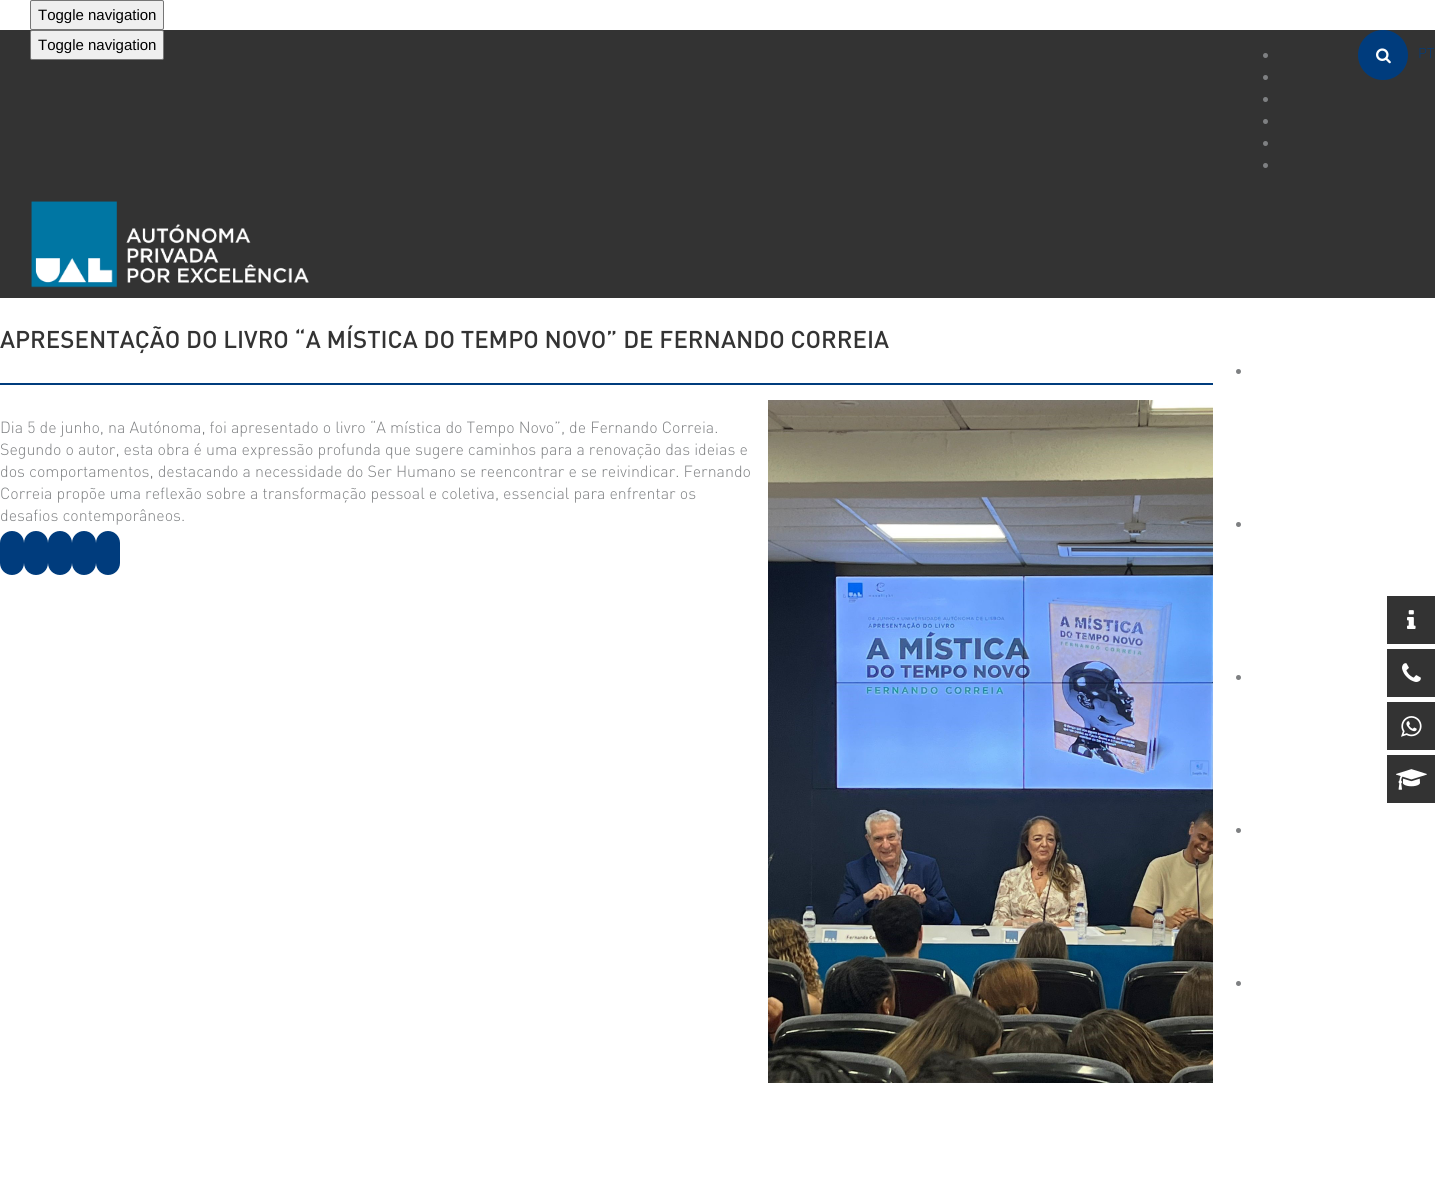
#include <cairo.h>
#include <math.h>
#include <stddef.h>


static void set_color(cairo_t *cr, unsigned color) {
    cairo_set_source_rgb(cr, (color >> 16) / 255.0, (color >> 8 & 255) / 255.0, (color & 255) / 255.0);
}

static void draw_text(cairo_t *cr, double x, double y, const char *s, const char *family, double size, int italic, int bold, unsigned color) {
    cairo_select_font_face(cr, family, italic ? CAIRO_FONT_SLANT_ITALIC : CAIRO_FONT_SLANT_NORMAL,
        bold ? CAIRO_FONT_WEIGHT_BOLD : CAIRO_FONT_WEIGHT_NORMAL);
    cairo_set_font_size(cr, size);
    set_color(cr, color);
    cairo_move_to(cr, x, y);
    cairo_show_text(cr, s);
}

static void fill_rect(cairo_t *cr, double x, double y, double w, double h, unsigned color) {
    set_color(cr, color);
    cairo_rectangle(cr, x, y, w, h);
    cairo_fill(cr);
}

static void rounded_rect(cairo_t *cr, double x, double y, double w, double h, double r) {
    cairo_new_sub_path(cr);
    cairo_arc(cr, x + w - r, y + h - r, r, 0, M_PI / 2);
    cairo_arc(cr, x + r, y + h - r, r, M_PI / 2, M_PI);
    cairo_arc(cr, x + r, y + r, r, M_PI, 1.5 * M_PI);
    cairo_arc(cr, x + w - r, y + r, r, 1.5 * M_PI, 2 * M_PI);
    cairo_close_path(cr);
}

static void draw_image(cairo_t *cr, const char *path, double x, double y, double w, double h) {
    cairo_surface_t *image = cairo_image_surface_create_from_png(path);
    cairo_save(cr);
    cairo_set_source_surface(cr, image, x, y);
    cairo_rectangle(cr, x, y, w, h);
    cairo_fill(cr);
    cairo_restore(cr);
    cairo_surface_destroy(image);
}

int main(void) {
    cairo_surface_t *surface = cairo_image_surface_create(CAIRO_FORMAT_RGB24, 1435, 1192);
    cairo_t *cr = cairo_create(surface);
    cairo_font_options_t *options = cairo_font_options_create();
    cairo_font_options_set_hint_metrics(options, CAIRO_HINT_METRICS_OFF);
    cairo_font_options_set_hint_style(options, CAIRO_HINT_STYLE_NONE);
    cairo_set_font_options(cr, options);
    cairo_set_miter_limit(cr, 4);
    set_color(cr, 0xFFFFFF);
    cairo_paint(cr);
    set_color(cr, 0xEFEFEF);
    rounded_rect(cr, 30.5, 0.5, 133, 29, 1.5);
    cairo_fill_preserve(cr);
    set_color(cr, 0x767676);
    cairo_set_line_width(cr, 1);
    cairo_stroke(cr);
    draw_text(cr, 38, 20, "Toggle navigation", "Liberation Sans", 15, 0, 0, 0x000000);
    fill_rect(cr, 0, 30, 1435, 268, 0x333333);
    set_color(cr, 0x7E8082);
    cairo_new_path(cr);
    cairo_arc(cr, 1265.5, 55.5, 2.5, 0, 2 * M_PI);
    cairo_fill(cr);
    cairo_arc(cr, 1265.5, 77.5, 2.5, 0, 2 * M_PI);
    cairo_fill(cr);
    cairo_arc(cr, 1265.5, 99.5, 2.5, 0, 2 * M_PI);
    cairo_fill(cr);
    cairo_arc(cr, 1265.5, 121.5, 2.5, 0, 2 * M_PI);
    cairo_fill(cr);
    cairo_arc(cr, 1265.5, 143.5, 2.5, 0, 2 * M_PI);
    cairo_fill(cr);
    cairo_arc(cr, 1265.5, 165.5, 2.5, 0, 2 * M_PI);
    cairo_fill(cr);
    set_color(cr, 0x003C7D);
    cairo_arc(cr, 1383, 55, 25, 0, 2 * M_PI);
    cairo_fill(cr);
    draw_image(cr, "assets/img1.png", 1376, 48, 15, 16);
    draw_text(cr, 1418, 58, "PT", "DIN Light", 14, 0, 0, 0x003C7D);
    set_color(cr, 0xEFEFEF);
    rounded_rect(cr, 30.5, 30.5, 133, 29, 1.5);
    cairo_fill_preserve(cr);
    set_color(cr, 0x767676);
    cairo_stroke(cr);
    draw_text(cr, 38, 50, "Toggle navigation", "Liberation Sans", 15, 0, 0, 0x000000);
    draw_image(cr, "assets/img2.png", 31, 201, 278, 87);
    set_color(cr, 0x7E8082);
    cairo_arc(cr, 1238.5, 371.5, 2.5, 0, 2 * M_PI);
    cairo_fill(cr);
    cairo_arc(cr, 1238.5, 524.5, 2.5, 0, 2 * M_PI);
    cairo_fill(cr);
    cairo_arc(cr, 1238.5, 677.5, 2.5, 0, 2 * M_PI);
    cairo_fill(cr);
    cairo_arc(cr, 1238.5, 830.5, 2.5, 0, 2 * M_PI);
    cairo_fill(cr);
    cairo_arc(cr, 1238.5, 983.5, 2.5, 0, 2 * M_PI);
    cairo_fill(cr);
    fill_rect(cr, 1387, 596, 48, 48, 0x333333);
    draw_image(cr, "assets/img3.png", 1407, 610, 9, 19);
    fill_rect(cr, 1387, 649, 48, 48, 0x333333);
    draw_image(cr, "assets/img4.png", 1402, 663, 19, 19);
    fill_rect(cr, 1387, 702, 48, 48, 0x333333);
    draw_image(cr, "assets/img5.png", 1401, 716, 21, 21);
    fill_rect(cr, 1387, 755, 48, 48, 0x333333);
    draw_image(cr, "assets/img6.png", 1396, 769, 31, 21);
    draw_text(cr, 0, 348, "APRESENTAÇÃO DO LIVRO “A MÍSTICA DO TEMPO NOVO” DE FERNANDO CORREIA", "DIN Medium", 24, 0, 0, 0x333333);
    fill_rect(cr, 0, 383, 1213, 2, 0x003C7D);
    draw_text(cr, 0, 433, "Dia 5 de junho, na Autónoma, foi apresentado o livro “A mística do Tempo Novo”, de Fernando Correia.", "DIN Light", 16, 0, 0, 0x7E8082);
    draw_text(cr, 0, 455, "Segundo o autor, esta obra é uma expressão profunda que sugere caminhos para a renovação das ideias e", "DIN Light", 16, 0, 0, 0x7E8082);
    draw_text(cr, 0, 477, "dos comportamentos, destacando a necessidade do Ser Humano se reencontrar e se reivindicar. Fernando", "DIN Light", 16, 0, 0, 0x7E8082);
    draw_text(cr, 0, 499, "Correia propõe uma reflexão sobre a transformação pessoal e coletiva, essencial para enfrentar os", "DIN Light", 16, 0, 0, 0x7E8082);
    draw_text(cr, 0, 521, "desafios contemporâneos.", "DIN Light", 16, 0, 0, 0x7E8082);
    draw_image(cr, "assets/img7.png", 768, 400, 445, 683);
    set_color(cr, 0x003C7D);
    rounded_rect(cr, 0, 531, 24, 44, 12);
    cairo_fill(cr);
    rounded_rect(cr, 24, 531, 24, 44, 12);
    cairo_fill(cr);
    rounded_rect(cr, 48, 531, 24, 44, 12);
    cairo_fill(cr);
    rounded_rect(cr, 72, 531, 24, 44, 12);
    cairo_fill(cr);
    rounded_rect(cr, 96, 531, 24, 44, 12);
    cairo_fill(cr);
    cairo_surface_write_to_png(surface, "output.png");
    cairo_font_options_destroy(options);
    cairo_destroy(cr);
    cairo_surface_destroy(surface);
    return 0;
}
